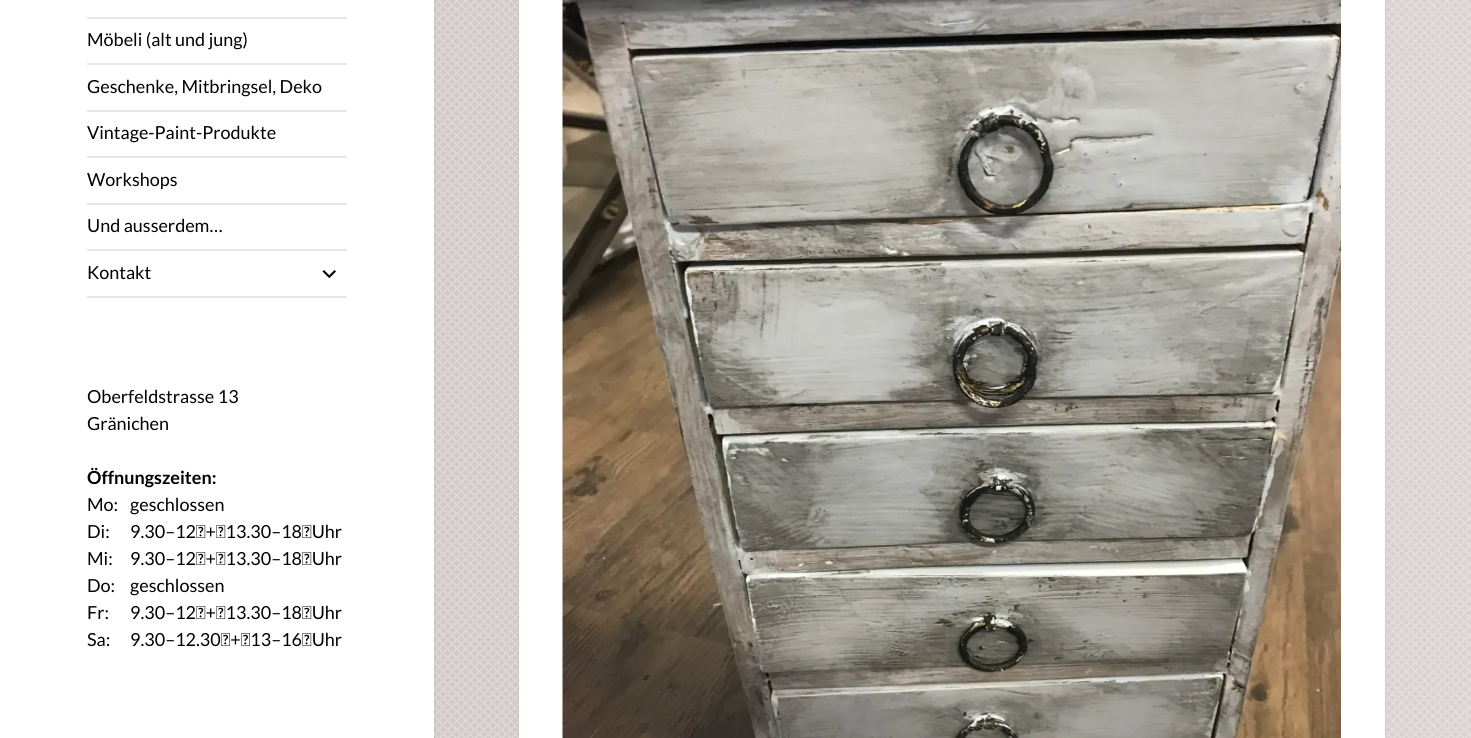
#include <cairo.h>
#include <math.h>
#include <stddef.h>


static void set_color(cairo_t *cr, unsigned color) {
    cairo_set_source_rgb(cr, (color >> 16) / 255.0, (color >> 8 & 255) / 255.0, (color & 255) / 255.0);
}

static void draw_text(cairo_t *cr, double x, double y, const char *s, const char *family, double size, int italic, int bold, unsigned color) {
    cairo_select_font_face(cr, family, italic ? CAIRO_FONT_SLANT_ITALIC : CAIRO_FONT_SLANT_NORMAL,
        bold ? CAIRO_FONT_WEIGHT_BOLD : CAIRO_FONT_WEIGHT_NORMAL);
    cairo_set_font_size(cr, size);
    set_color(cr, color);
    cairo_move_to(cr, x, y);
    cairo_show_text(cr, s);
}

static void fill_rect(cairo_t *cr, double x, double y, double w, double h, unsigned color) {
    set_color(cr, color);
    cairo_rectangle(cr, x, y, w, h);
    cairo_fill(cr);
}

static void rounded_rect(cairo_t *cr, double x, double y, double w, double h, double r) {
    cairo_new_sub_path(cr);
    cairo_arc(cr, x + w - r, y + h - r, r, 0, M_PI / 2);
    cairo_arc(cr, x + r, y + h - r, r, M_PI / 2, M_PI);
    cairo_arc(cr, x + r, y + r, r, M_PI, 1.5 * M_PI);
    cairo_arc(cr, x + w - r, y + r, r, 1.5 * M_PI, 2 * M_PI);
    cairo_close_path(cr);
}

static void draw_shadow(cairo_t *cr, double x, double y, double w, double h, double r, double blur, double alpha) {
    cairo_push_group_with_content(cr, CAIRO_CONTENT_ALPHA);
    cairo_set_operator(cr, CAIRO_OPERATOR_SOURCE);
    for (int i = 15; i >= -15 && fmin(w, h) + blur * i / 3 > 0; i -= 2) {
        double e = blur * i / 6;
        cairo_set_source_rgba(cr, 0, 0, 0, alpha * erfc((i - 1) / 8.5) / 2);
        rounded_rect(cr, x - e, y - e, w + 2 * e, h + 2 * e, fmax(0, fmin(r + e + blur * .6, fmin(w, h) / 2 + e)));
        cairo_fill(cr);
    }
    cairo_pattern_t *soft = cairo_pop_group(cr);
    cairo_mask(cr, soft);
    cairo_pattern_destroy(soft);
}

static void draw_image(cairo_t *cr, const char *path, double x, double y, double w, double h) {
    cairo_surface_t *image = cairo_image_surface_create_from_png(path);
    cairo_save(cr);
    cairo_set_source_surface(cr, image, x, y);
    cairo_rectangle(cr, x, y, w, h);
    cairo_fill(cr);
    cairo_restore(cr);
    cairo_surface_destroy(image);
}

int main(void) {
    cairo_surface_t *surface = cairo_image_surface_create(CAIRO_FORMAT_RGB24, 1471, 738);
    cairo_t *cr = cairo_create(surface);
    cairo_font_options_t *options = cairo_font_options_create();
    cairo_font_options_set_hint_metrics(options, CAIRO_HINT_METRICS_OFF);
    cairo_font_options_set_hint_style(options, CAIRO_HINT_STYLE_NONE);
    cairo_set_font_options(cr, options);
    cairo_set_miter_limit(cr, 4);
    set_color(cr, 0xFFFFFF);
    cairo_paint(cr);
    draw_image(cr, "assets/img1.png", 434, 0, 1037, 738);
    set_color(cr, 0x000000);
    draw_shadow(cr, 0, 0, 434, 738, 0, 1, 0.15);
    fill_rect(cr, 0, 0, 434, 738, 0xFFFFFF);
    fill_rect(cr, 87, 296, 260, 2, 0xE6E6E6);
    fill_rect(cr, 87, 17, 260, 2, 0xE6E6E6);
    draw_text(cr, 87, 46, "Möbeli (alt und jung)", "Lato", 18, 0, 0, 0x000000);
    fill_rect(cr, 87, 63, 260, 2, 0xE6E6E6);
    draw_text(cr, 87, 93, "Geschenke, Mitbringsel, Deko", "Lato", 18, 0, 0, 0x000000);
    fill_rect(cr, 87, 110, 260, 2, 0xE6E6E6);
    draw_text(cr, 87, 139, "Vintage-Paint-Produkte", "Lato", 18, 0, 0, 0x000000);
    fill_rect(cr, 87, 156, 260, 2, 0xE6E6E6);
    draw_text(cr, 87, 186, "Workshops", "Lato", 18, 0, 0, 0x000000);
    fill_rect(cr, 87, 203, 260, 2, 0xE6E6E6);
    draw_text(cr, 87, 232, "Und ausserdem…", "Lato", 18, 0, 0, 0x000000);
    fill_rect(cr, 87, 249, 260, 2, 0xE6E6E6);
    draw_text(cr, 87, 279, "Kontakt", "Lato", 18, 0, 0, 0x000000);
    draw_image(cr, "assets/img2.png", 322, 270, 14, 9);
    draw_text(cr, 87, 403, "Oberfeldstrasse 13", "Lato", 18, 0, 0, 0x000000);
    draw_text(cr, 87, 430, "Gränichen", "Lato", 18, 0, 0, 0x000000);
    draw_text(cr, 87, 484, "Öffnungszeiten:", "Lato", 18, 0, 1, 0x000000);
    draw_text(cr, 87, 511, "Mo:", "Lato", 18, 0, 0, 0x000000);
    draw_text(cr, 87, 538, "Di:", "Lato", 18, 0, 0, 0x000000);
    draw_text(cr, 87, 565, "Mi:", "Lato", 18, 0, 0, 0x000000);
    draw_text(cr, 87, 592, "Do:", "Lato", 18, 0, 0, 0x000000);
    draw_text(cr, 87, 619, "Fr:", "Lato", 18, 0, 0, 0x000000);
    draw_text(cr, 87, 646, "Sa:", "Lato", 18, 0, 0, 0x000000);
    draw_text(cr, 130, 511, "geschlossen", "Lato", 18, 0, 0, 0x000000);
    draw_text(cr, 130, 538, "9.30–12 + 13.30–18 Uhr", "Lato", 18, 0, 0, 0x000000);
    draw_text(cr, 130, 565, "9.30–12 + 13.30–18 Uhr", "Lato", 18, 0, 0, 0x000000);
    draw_text(cr, 130, 592, "geschlossen", "Lato", 18, 0, 0, 0x000000);
    draw_text(cr, 130, 619, "9.30–12 + 13.30–18 Uhr", "Lato", 18, 0, 0, 0x000000);
    draw_text(cr, 130, 646, "9.30–12.30 + 13–16 Uhr", "Lato", 18, 0, 0, 0x000000);
    set_color(cr, 0x000000);
    draw_shadow(cr, 519, -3, 866, 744, 0, 1, 0.15);
    fill_rect(cr, 519, 0, 866, 738, 0xFFFFFF);
    draw_image(cr, "assets/img3.png", 562, 0, 779, 738);
    cairo_surface_write_to_png(surface, "output.png");
    cairo_font_options_destroy(options);
    cairo_destroy(cr);
    cairo_surface_destroy(surface);
    return 0;
}
